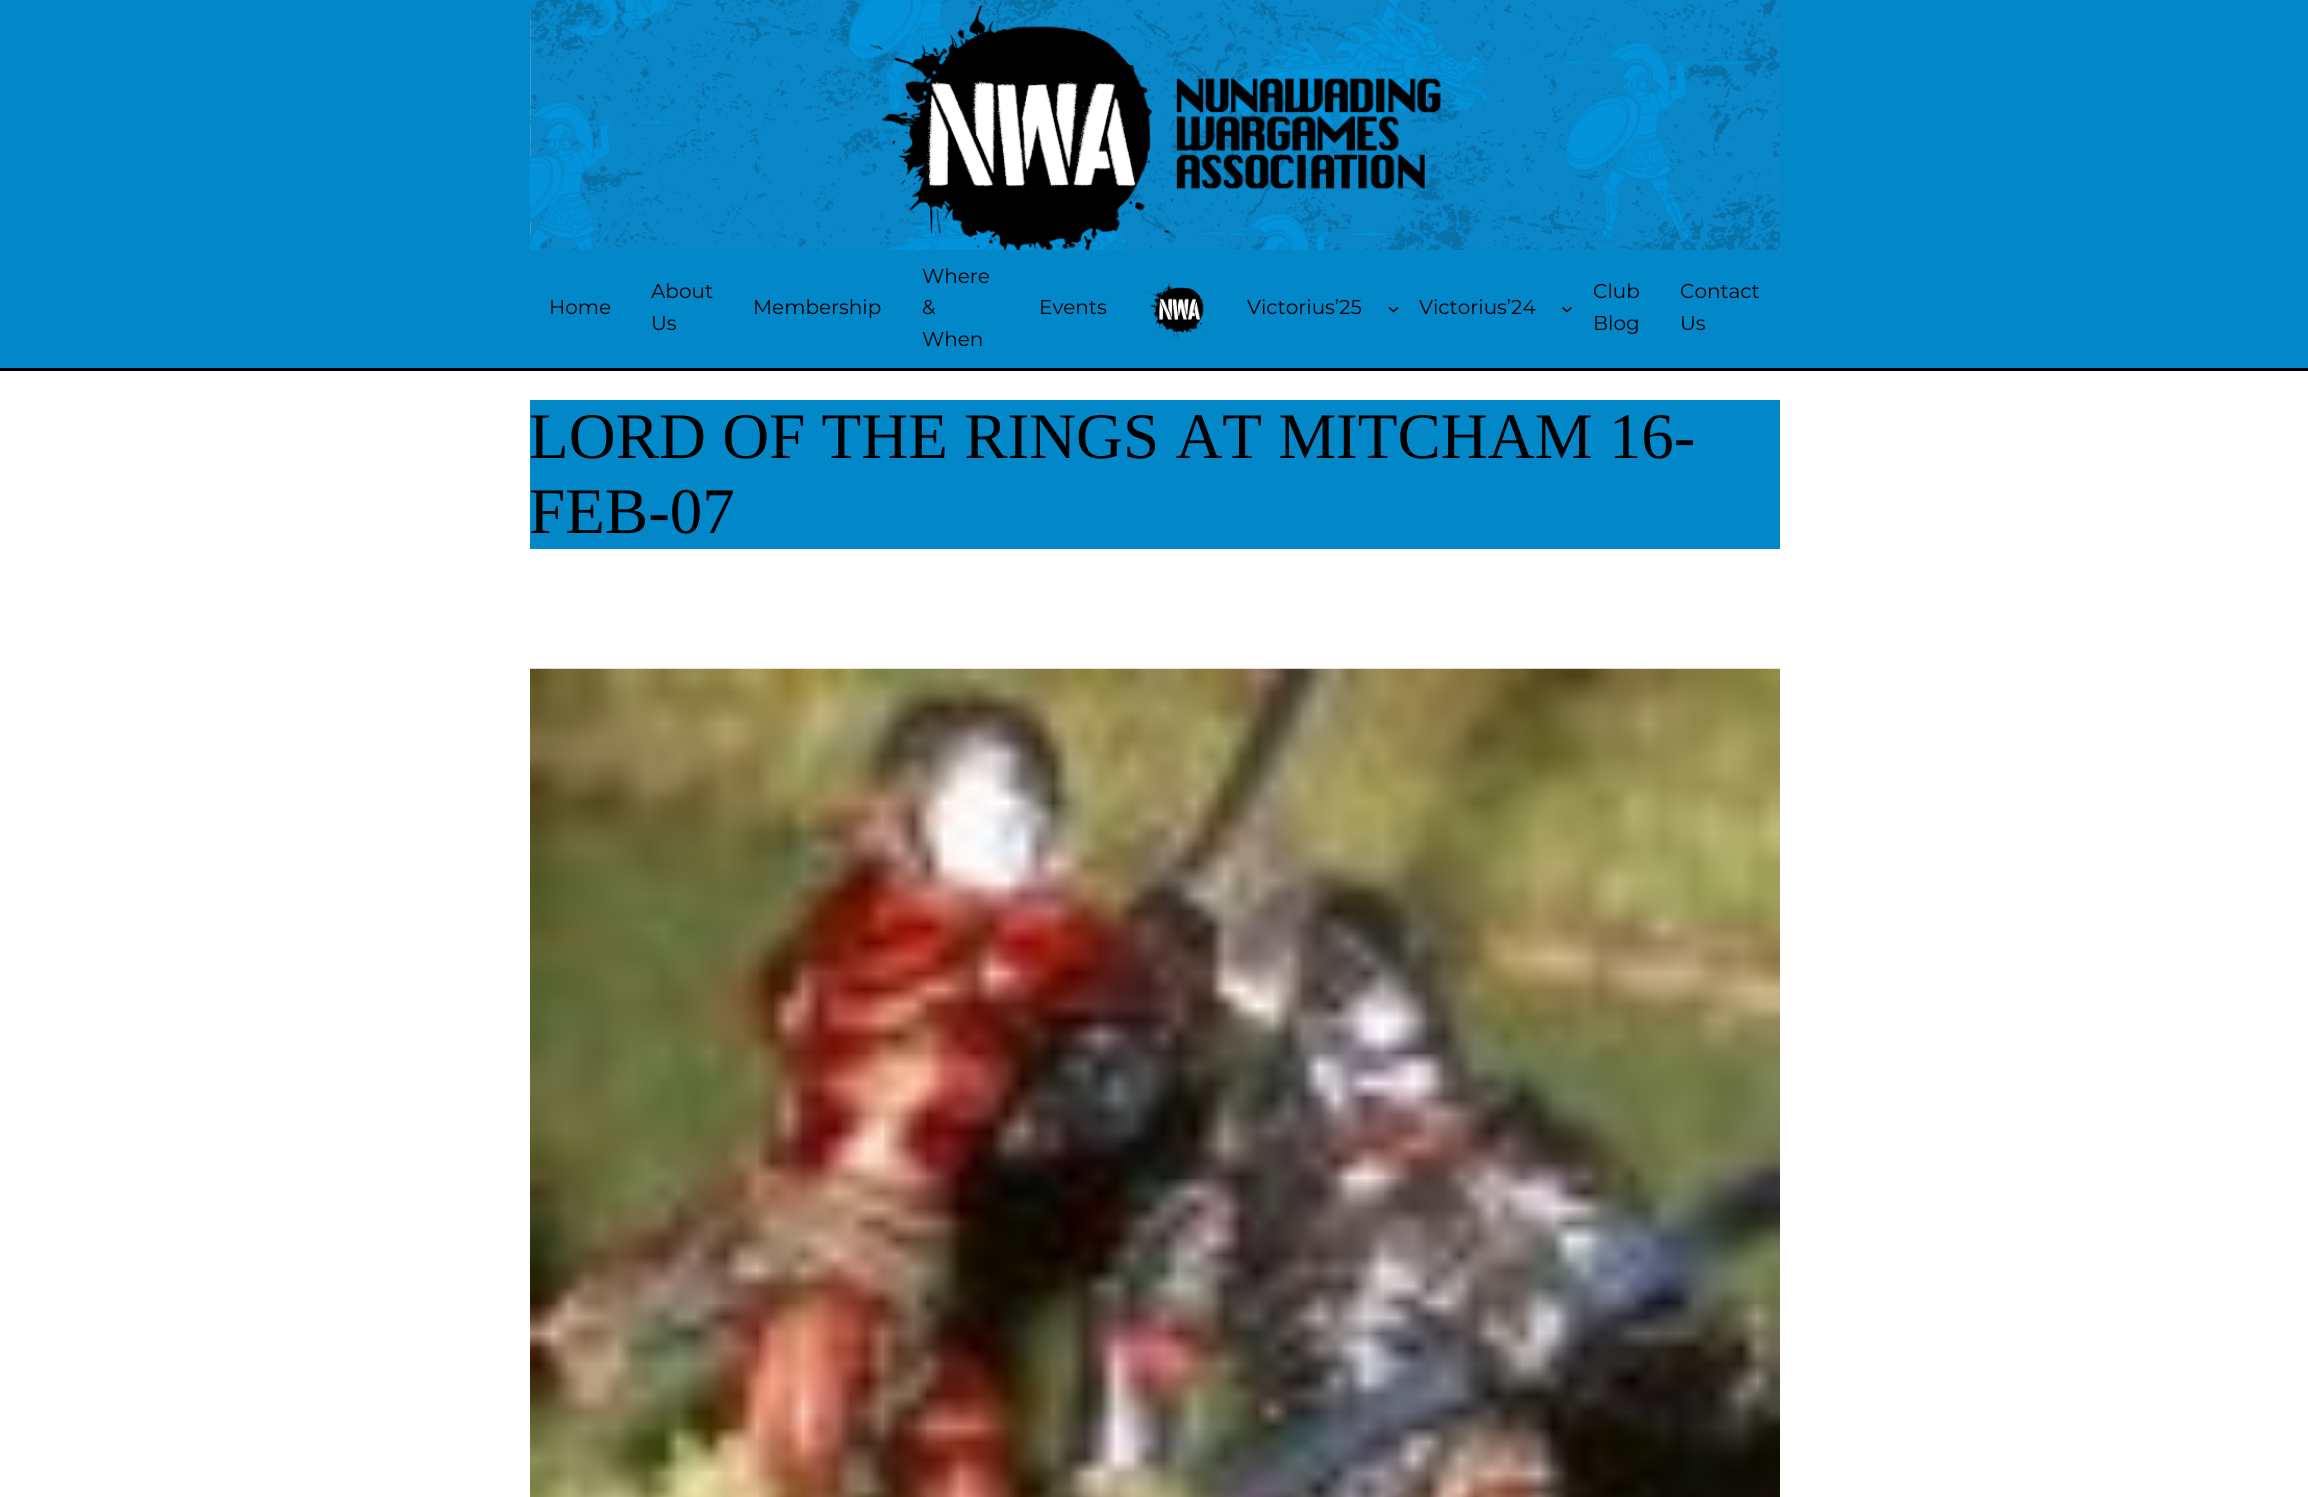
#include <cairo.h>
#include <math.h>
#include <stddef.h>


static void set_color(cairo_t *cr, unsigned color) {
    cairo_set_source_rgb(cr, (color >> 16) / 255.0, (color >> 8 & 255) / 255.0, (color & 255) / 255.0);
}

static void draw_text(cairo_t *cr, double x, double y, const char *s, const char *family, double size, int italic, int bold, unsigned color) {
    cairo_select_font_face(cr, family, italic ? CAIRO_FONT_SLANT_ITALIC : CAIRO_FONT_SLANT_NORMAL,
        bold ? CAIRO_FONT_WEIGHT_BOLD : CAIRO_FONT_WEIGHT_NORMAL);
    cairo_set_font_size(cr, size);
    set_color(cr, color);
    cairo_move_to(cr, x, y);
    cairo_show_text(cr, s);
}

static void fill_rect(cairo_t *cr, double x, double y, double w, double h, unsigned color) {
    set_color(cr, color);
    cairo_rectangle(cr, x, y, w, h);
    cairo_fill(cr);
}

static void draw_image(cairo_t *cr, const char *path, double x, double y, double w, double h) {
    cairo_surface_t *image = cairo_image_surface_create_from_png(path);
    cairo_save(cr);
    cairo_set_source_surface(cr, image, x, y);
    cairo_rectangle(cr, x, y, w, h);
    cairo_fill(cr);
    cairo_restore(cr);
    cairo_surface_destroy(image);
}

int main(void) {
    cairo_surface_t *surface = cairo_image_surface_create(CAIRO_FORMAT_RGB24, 2308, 1497);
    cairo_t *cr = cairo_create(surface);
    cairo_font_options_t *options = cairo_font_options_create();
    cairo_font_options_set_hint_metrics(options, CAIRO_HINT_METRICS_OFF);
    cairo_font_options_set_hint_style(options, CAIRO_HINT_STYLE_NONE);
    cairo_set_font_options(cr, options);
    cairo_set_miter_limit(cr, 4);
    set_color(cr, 0xFFFFFF);
    cairo_paint(cr);
    fill_rect(cr, 0, 0, 2308, 368, 0x0287C9);
    fill_rect(cr, 0, 368, 2308, 3, 0x000000);
    draw_image(cr, "assets/img1.png", 530, 0, 1250, 250);
    draw_text(cr, 549, 314, "Home", "Montserrat", 20, 0, 0, 0x000000);
    draw_text(cr, 651, 298, "About", "Montserrat", 20, 0, 0, 0x000000);
    draw_text(cr, 651, 330, "Us", "Montserrat", 20, 0, 0, 0x000000);
    draw_text(cr, 753, 314, "Membership", "Montserrat", 20, 0, 0, 0x000000);
    draw_text(cr, 922, 283, "Where", "Montserrat", 20, 0, 0, 0x000000);
    draw_text(cr, 922, 314, "&", "Montserrat", 20, 0, 0, 0x000000);
    draw_text(cr, 922, 346, "When", "Montserrat", 20, 0, 0, 0x000000);
    draw_text(cr, 1039, 314, "Events", "Montserrat", 20, 0, 0, 0x000000);
    draw_image(cr, "assets/img2.png", 1147, 276, 61, 63);
    draw_text(cr, 1247, 314, "Victorius’25", "Montserrat", 20, 0, 0, 0x000000);
    cairo_new_path(cr);
    cairo_move_to(cr, 1389, 307.5);
    cairo_line_to(cr, 1393.5, 311.5);
    cairo_line_to(cr, 1398, 307.5);
    cairo_set_line_width(cr, 1.5);
    cairo_stroke(cr);
    draw_text(cr, 1419, 314, "Victorius’24", "Montserrat", 20, 0, 0, 0x000000);
    cairo_new_path(cr);
    cairo_move_to(cr, 1562.5, 307.5);
    cairo_line_to(cr, 1567, 311.5);
    cairo_line_to(cr, 1571.5, 307.5);
    cairo_stroke(cr);
    draw_text(cr, 1593, 298, "Club", "Montserrat", 20, 0, 0, 0x000000);
    draw_text(cr, 1593, 330, "Blog", "Montserrat", 20, 0, 0, 0x000000);
    draw_text(cr, 1680, 298, "Contact", "Montserrat", 20, 0, 0, 0x000000);
    draw_text(cr, 1680, 330, "Us", "Montserrat", 20, 0, 0, 0x000000);
    fill_rect(cr, 530, 400, 1250, 149, 0x0287C9);
    draw_text(cr, 529, 458, "LORD OF THE RINGS AT MITCHAM 16-", "Liberation Serif", 65, 0, 0, 0x000000);
    draw_text(cr, 529, 533, "FEB-07", "Liberation Serif", 65, 0, 0, 0x000000);
    draw_image(cr, "assets/img3.png", 530, 668, 1250, 829);
    cairo_surface_write_to_png(surface, "output.png");
    cairo_font_options_destroy(options);
    cairo_destroy(cr);
    cairo_surface_destroy(surface);
    return 0;
}
